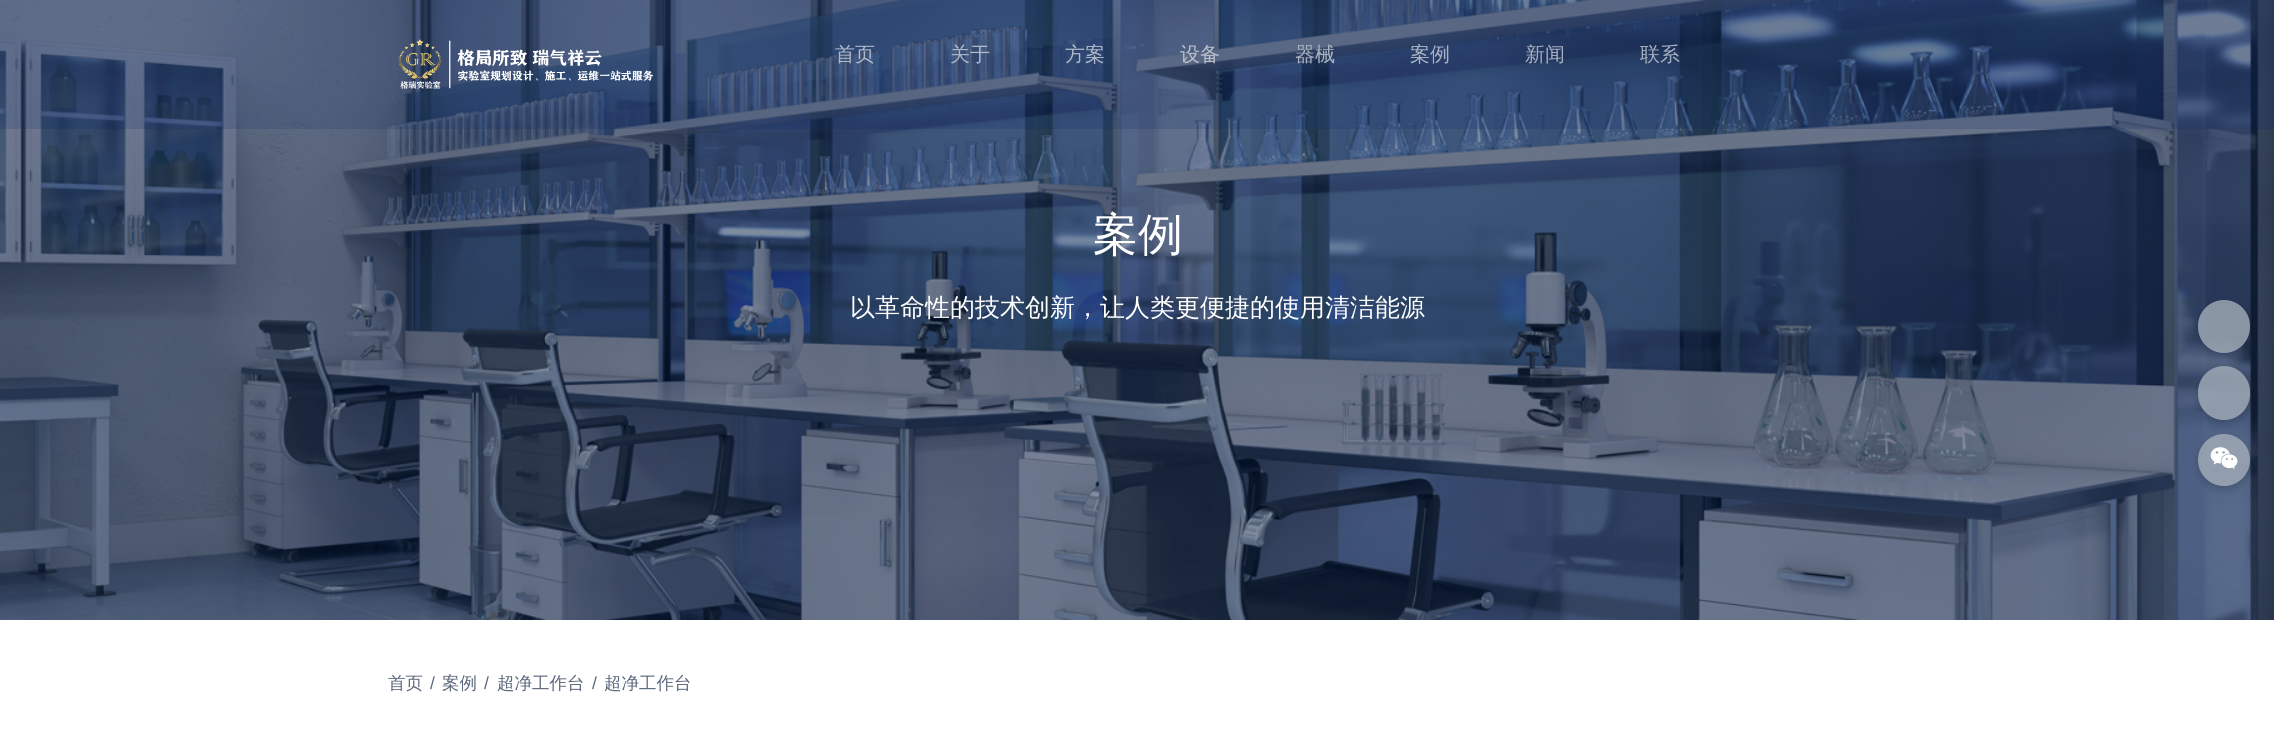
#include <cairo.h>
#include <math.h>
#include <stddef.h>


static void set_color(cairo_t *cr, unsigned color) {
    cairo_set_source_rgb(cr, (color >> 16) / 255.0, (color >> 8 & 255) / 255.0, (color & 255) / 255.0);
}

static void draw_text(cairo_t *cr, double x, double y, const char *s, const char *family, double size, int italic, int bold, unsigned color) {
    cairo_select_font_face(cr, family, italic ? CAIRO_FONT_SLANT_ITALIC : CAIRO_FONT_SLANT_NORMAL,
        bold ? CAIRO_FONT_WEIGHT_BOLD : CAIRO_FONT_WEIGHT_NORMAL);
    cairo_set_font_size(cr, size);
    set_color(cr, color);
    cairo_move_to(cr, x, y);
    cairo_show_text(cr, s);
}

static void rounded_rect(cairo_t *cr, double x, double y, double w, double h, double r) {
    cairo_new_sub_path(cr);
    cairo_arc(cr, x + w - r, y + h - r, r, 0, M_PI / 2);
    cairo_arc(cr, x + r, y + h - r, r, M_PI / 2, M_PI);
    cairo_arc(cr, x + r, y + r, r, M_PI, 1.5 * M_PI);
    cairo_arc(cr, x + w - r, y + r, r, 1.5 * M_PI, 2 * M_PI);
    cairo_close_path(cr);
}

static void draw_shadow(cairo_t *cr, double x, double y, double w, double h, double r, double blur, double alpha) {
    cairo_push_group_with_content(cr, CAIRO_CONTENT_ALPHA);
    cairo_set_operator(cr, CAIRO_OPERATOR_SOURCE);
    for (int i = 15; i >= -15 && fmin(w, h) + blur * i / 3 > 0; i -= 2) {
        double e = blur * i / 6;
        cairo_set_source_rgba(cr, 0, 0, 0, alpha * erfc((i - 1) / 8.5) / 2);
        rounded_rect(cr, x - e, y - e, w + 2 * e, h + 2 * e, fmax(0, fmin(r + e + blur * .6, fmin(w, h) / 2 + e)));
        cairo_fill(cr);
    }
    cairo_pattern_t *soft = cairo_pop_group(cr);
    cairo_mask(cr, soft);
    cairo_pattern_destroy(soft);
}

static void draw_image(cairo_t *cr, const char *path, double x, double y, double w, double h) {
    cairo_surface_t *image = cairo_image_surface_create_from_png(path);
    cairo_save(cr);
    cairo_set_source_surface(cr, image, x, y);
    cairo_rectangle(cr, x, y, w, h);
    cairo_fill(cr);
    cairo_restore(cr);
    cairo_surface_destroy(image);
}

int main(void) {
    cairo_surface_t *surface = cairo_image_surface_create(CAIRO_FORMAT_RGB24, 2274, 736);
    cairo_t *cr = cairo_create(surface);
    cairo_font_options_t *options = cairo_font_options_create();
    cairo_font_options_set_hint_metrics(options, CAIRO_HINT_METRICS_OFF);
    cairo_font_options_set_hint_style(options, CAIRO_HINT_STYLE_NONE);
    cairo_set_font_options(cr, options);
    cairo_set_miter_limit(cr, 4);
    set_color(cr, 0xFFFFFF);
    cairo_paint(cr);
    draw_image(cr, "assets/img2.png", 0, 0, 2274, 620);
    cairo_set_source_rgba(cr, 0, 0.137, 0.408, 0.16);
    cairo_rectangle(cr, 0, 0, 2274, 129);
    cairo_fill(cr);
    draw_image(cr, "assets/img1.png", 398, 39, 255, 50);
    draw_text(cr, 835, 61, "首页", "WenQuanYi Zen Hei Medium", 20, 0, 0, 0xAFB9C8);
    draw_text(cr, 950, 61, "关于", "WenQuanYi Zen Hei Medium", 20, 0, 0, 0xAFB9C8);
    draw_text(cr, 1065, 61, "方案", "WenQuanYi Zen Hei Medium", 20, 0, 0, 0xAFB9C8);
    draw_text(cr, 1180, 61, "设备", "WenQuanYi Zen Hei Medium", 20, 0, 0, 0xBAC1CD);
    draw_text(cr, 1295, 61, "器械", "WenQuanYi Zen Hei Medium", 20, 0, 0, 0xACB4C2);
    draw_text(cr, 1410, 61, "案例", "WenQuanYi Zen Hei Medium", 20, 0, 0, 0xACB4C2);
    draw_text(cr, 1525, 61, "新闻", "WenQuanYi Zen Hei Medium", 20, 0, 0, 0xA6AFBF);
    draw_text(cr, 1640, 61, "联系", "WenQuanYi Zen Hei Medium", 20, 0, 0, 0xA6AFBF);
    draw_text(cr, 1093, 250, "案例", "WenQuanYi Zen Hei Medium", 45, 0, 0, 0xFFFFFF);
    draw_text(cr, 850, 316, "以革命性的技术创新，让人类更便捷的使用清洁能源", "WenQuanYi Zen Hei Medium", 25, 0, 0, 0xFFFFFF);
    cairo_save(cr);
    cairo_set_fill_rule(cr, CAIRO_FILL_RULE_EVEN_ODD);
    cairo_new_path(cr);
    cairo_move_to(cr, 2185, 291);
    cairo_line_to(cr, 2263, 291);
    cairo_line_to(cr, 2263, 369);
    cairo_line_to(cr, 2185, 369);
    cairo_close_path(cr);
    cairo_move_to(cr, 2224, 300);
    cairo_curve_to(cr, 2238.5, 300, 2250, 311.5, 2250, 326);
    cairo_line_to(cr, 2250, 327);
    cairo_curve_to(cr, 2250, 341.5, 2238.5, 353, 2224, 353);
    cairo_curve_to(cr, 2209.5, 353, 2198, 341.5, 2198, 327);
    cairo_line_to(cr, 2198, 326);
    cairo_curve_to(cr, 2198, 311.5, 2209.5, 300, 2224, 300);
    cairo_close_path(cr);
    cairo_clip(cr);
    set_color(cr, 0x000000);
    draw_shadow(cr, 2198, 304, 52, 52, 26, 4, 0.16);
    cairo_restore(cr);
    cairo_set_source_rgba(cr, 0.639, 0.675, 0.718, 0.8);
    rounded_rect(cr, 2198, 300, 52, 53, 26);
    cairo_fill(cr);
    cairo_save(cr);
    cairo_set_fill_rule(cr, CAIRO_FILL_RULE_EVEN_ODD);
    cairo_new_path(cr);
    cairo_move_to(cr, 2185, 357);
    cairo_line_to(cr, 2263, 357);
    cairo_line_to(cr, 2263, 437);
    cairo_line_to(cr, 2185, 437);
    cairo_close_path(cr);
    cairo_move_to(cr, 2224, 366);
    cairo_curve_to(cr, 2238.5, 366, 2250, 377.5, 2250, 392);
    cairo_line_to(cr, 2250, 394);
    cairo_curve_to(cr, 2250, 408.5, 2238.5, 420, 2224, 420);
    cairo_curve_to(cr, 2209.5, 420, 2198, 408.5, 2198, 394);
    cairo_line_to(cr, 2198, 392);
    cairo_curve_to(cr, 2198, 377.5, 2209.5, 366, 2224, 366);
    cairo_close_path(cr);
    cairo_clip(cr);
    set_color(cr, 0x000000);
    draw_shadow(cr, 2198, 370, 52, 54, 26, 4, 0.16);
    cairo_restore(cr);
    rounded_rect(cr, 2198, 366, 52, 54, 26);
    cairo_fill(cr);
    cairo_save(cr);
    cairo_set_fill_rule(cr, CAIRO_FILL_RULE_EVEN_ODD);
    cairo_new_path(cr);
    cairo_move_to(cr, 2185, 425);
    cairo_line_to(cr, 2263, 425);
    cairo_line_to(cr, 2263, 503);
    cairo_line_to(cr, 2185, 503);
    cairo_close_path(cr);
    cairo_move_to(cr, 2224, 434);
    cairo_curve_to(cr, 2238.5, 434, 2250, 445.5, 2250, 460);
    cairo_curve_to(cr, 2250, 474.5, 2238.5, 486, 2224, 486);
    cairo_curve_to(cr, 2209.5, 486, 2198, 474.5, 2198, 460);
    cairo_curve_to(cr, 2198, 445.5, 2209.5, 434, 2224, 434);
    cairo_close_path(cr);
    cairo_clip(cr);
    set_color(cr, 0x000000);
    draw_shadow(cr, 2198, 438, 52, 52, 26, 4, 0.16);
    cairo_restore(cr);
    cairo_arc(cr, 2224, 460, 26, 0, 2 * M_PI);
    cairo_fill(cr);
    draw_image(cr, "assets/img3.png", 2210, 447, 28, 22);
    draw_text(cr, 388, 689, "首页", "WenQuanYi Zen Hei Medium", 17.5, 0, 0, 0x5C677D);
    draw_text(cr, 430, 689, "/", "Liberation Sans", 17.5, 0, 0, 0x5C677D);
    draw_text(cr, 442, 689, "案例", "WenQuanYi Zen Hei Medium", 17.5, 0, 0, 0x5C677D);
    draw_text(cr, 484, 689, "/", "Liberation Sans", 17.5, 0, 0, 0x5C677D);
    draw_text(cr, 497, 689, "超净工作台", "WenQuanYi Zen Hei Medium", 17.5, 0, 0, 0x5C677D);
    draw_text(cr, 592, 689, "/", "Liberation Sans", 17.5, 0, 0, 0x5C677D);
    draw_text(cr, 604, 689, "超净工作台", "WenQuanYi Zen Hei Medium", 17.5, 0, 0, 0x5C677D);
    cairo_surface_write_to_png(surface, "output.png");
    cairo_font_options_destroy(options);
    cairo_destroy(cr);
    cairo_surface_destroy(surface);
    return 0;
}
